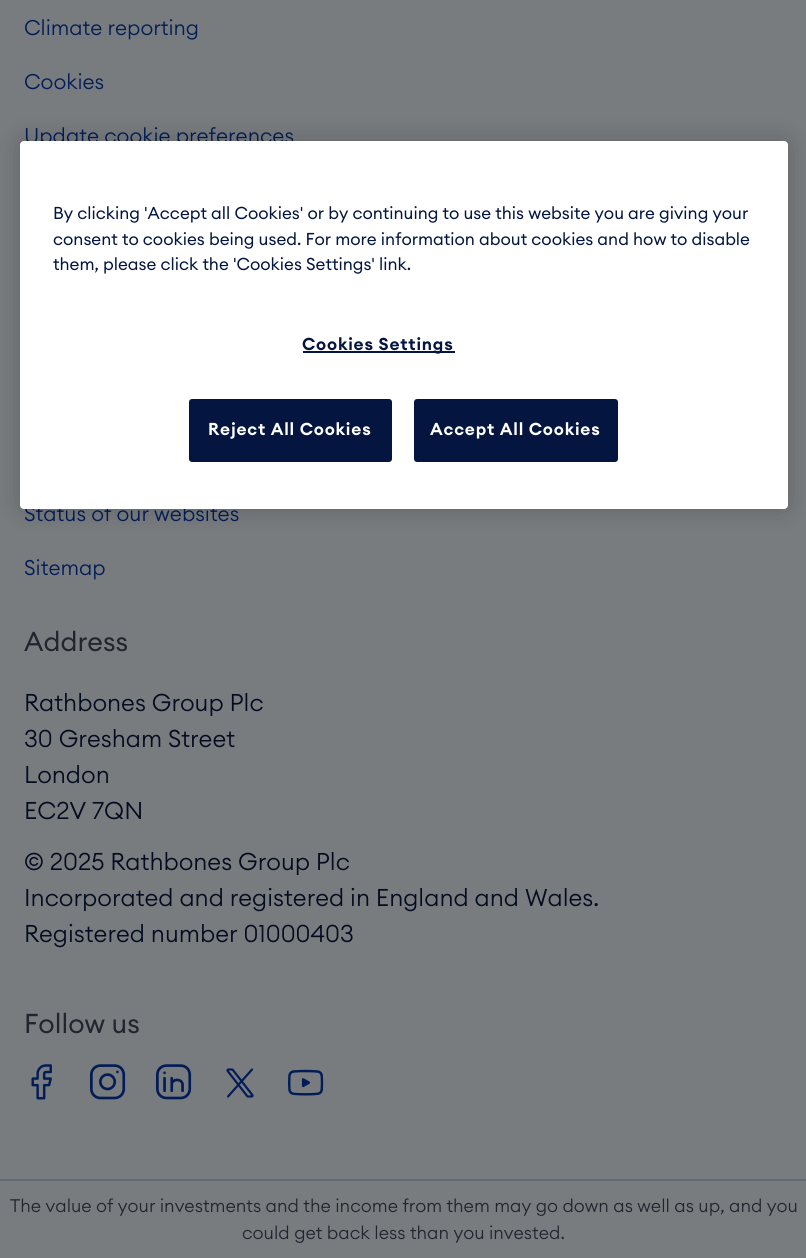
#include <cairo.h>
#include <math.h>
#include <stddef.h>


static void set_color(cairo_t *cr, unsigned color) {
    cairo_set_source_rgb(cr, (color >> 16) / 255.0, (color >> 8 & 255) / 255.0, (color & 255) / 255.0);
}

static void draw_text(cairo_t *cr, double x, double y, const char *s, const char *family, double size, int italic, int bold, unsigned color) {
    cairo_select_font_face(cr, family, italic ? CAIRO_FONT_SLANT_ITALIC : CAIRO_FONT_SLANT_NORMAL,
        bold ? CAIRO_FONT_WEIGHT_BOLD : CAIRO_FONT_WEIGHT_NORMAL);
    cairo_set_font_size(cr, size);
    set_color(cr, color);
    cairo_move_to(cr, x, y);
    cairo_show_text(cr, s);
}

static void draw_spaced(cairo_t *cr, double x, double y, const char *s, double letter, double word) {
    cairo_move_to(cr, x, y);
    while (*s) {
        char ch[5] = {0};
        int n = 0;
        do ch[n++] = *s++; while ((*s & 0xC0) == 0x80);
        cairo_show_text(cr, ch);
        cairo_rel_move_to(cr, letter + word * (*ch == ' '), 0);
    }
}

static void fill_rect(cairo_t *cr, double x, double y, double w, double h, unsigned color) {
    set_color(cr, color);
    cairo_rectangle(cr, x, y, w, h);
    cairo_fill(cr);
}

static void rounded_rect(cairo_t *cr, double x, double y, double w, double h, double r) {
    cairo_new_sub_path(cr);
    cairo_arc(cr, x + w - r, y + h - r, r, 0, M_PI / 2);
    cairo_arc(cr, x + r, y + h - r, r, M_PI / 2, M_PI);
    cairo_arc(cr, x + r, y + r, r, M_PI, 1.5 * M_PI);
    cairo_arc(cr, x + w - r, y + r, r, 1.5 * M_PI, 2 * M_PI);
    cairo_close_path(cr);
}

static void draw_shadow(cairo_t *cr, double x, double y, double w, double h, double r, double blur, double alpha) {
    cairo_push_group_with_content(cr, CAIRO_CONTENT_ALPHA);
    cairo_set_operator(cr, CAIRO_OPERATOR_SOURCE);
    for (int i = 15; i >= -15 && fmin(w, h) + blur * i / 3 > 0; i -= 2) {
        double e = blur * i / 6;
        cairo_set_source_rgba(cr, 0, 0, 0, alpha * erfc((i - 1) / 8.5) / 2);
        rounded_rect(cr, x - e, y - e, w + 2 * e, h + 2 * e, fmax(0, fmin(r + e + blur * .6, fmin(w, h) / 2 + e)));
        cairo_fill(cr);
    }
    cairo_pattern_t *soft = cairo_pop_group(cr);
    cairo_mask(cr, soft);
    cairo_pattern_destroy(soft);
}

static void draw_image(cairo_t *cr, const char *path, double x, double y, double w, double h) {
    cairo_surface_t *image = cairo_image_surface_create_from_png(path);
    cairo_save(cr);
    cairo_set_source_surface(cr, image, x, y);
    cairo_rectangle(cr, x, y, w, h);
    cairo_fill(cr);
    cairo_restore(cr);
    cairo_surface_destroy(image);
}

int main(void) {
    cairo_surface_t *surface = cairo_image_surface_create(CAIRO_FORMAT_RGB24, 806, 1258);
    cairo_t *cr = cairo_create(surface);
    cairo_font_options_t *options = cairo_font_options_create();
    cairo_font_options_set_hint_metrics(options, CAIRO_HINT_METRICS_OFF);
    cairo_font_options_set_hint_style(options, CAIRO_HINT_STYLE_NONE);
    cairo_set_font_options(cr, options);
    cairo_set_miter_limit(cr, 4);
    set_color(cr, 0x797C7E);
    cairo_paint(cr);
    draw_text(cr, 24, 35, "Climate reporting", "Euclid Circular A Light", 21, 0, 0, 0x021C58);
    draw_text(cr, 24, 89, "Cookies", "Euclid Circular A Light", 21, 0, 0, 0x021C58);
    draw_text(cr, 24, 143, "Update cookie preferences", "Euclid Circular A Light", 21, 0, 0, 0x021C58);
    draw_text(cr, 24, 521, "Status of our websites", "Euclid Circular A Light", 21, 0, 0, 0x021C58);
    draw_text(cr, 24, 575, "Sitemap", "Euclid Circular A Light", 21, 0, 0, 0x021C58);
    draw_text(cr, 24, 651, "Address", "Euclid Circular A", 27, 0, 0, 0x22252E);
    draw_text(cr, 24, 711, "Rathbones Group Plc", "Euclid Circular A Light", 24, 0, 0, 0x020B20);
    draw_text(cr, 24, 747, "30 Gresham Street", "Euclid Circular A Light", 24, 0, 0, 0x020B20);
    draw_text(cr, 24, 783, "London", "Euclid Circular A Light", 24, 0, 0, 0x020B20);
    draw_text(cr, 24, 819, "EC2V 7QN", "Euclid Circular A Light", 24, 0, 0, 0x020B20);
    draw_text(cr, 24, 870, "© 2025 Rathbones Group Plc", "Euclid Circular A Light", 24, 0, 0, 0x020B20);
    draw_text(cr, 24, 906, "Incorporated and registered in England and Wales.", "Euclid Circular A Light", 24, 0, 0, 0x020B20);
    draw_text(cr, 24, 942, "Registered number 01000403", "Euclid Circular A Light", 24, 0, 0, 0x020B20);
    draw_text(cr, 24, 1033, "Follow us", "Euclid Circular A", 27, 0, 0, 0x22252E);
    draw_image(cr, "assets/img1.png", 31, 1064, 21, 36);
    draw_image(cr, "assets/img2.png", 90, 1064, 36, 36);
    draw_image(cr, "assets/img3.png", 156, 1064, 36, 36);
    draw_image(cr, "assets/img4.png", 226, 1068, 28, 30);
    draw_image(cr, "assets/img5.png", 288, 1069, 36, 27);
    fill_rect(cr, 0, 1179, 806, 2, 0x616976);
    draw_text(cr, 10, 1212, "The value of your investments and the income from them may go down as well as up, and you", "Euclid Circular A Light", 18, 0, 0, 0x22252E);
    draw_text(cr, 242, 1239, "could get back less than you invested.", "Euclid Circular A Light", 18, 0, 0, 0x22252E);
    set_color(cr, 0x000000);
    draw_shadow(cr, 20, 141, 768, 368, 4, 13.5, 0.2);
    set_color(cr, 0xFFFFFF);
    rounded_rect(cr, 20, 141, 768, 368, 4);
    cairo_fill(cr);
    draw_text(cr, 53, 219, "By clicking 'Accept all Cookies' or by continuing to use this website you are giving your", "Euclid Circular A", 17.05, 0, 0, 0x041640);
    draw_text(cr, 53, 245, "consent to cookies being used. For more information about cookies and how to disable", "Euclid Circular A", 17.05, 0, 0, 0x041640);
    draw_text(cr, 53, 270, "them, please click the 'Cookies Settings' link.", "Euclid Circular A", 17.05, 0, 0, 0x041640);
    fill_rect(cr, 303, 351, 152, 2, 0x041640);
    cairo_select_font_face(cr, "Euclid Circular A SemiBold", CAIRO_FONT_SLANT_NORMAL, CAIRO_FONT_WEIGHT_NORMAL);
    draw_spaced(cr, 302, 350, "Cookies Settings", 0.8, 0);
    rounded_rect(cr, 190, 400, 201, 61, 2);
    cairo_fill_preserve(cr);
    cairo_stroke(cr);
    set_color(cr, 0xFFFFFF);
    draw_spaced(cr, 208, 435, "Reject All Cookies", 0.8, 0);
    set_color(cr, 0x041640);
    rounded_rect(cr, 415, 400, 202, 61, 2);
    cairo_fill_preserve(cr);
    cairo_stroke(cr);
    set_color(cr, 0xFFFFFF);
    draw_spaced(cr, 430, 435, "Accept All Cookies", 0.8, 0);
    cairo_surface_write_to_png(surface, "output.png");
    cairo_font_options_destroy(options);
    cairo_destroy(cr);
    cairo_surface_destroy(surface);
    return 0;
}
